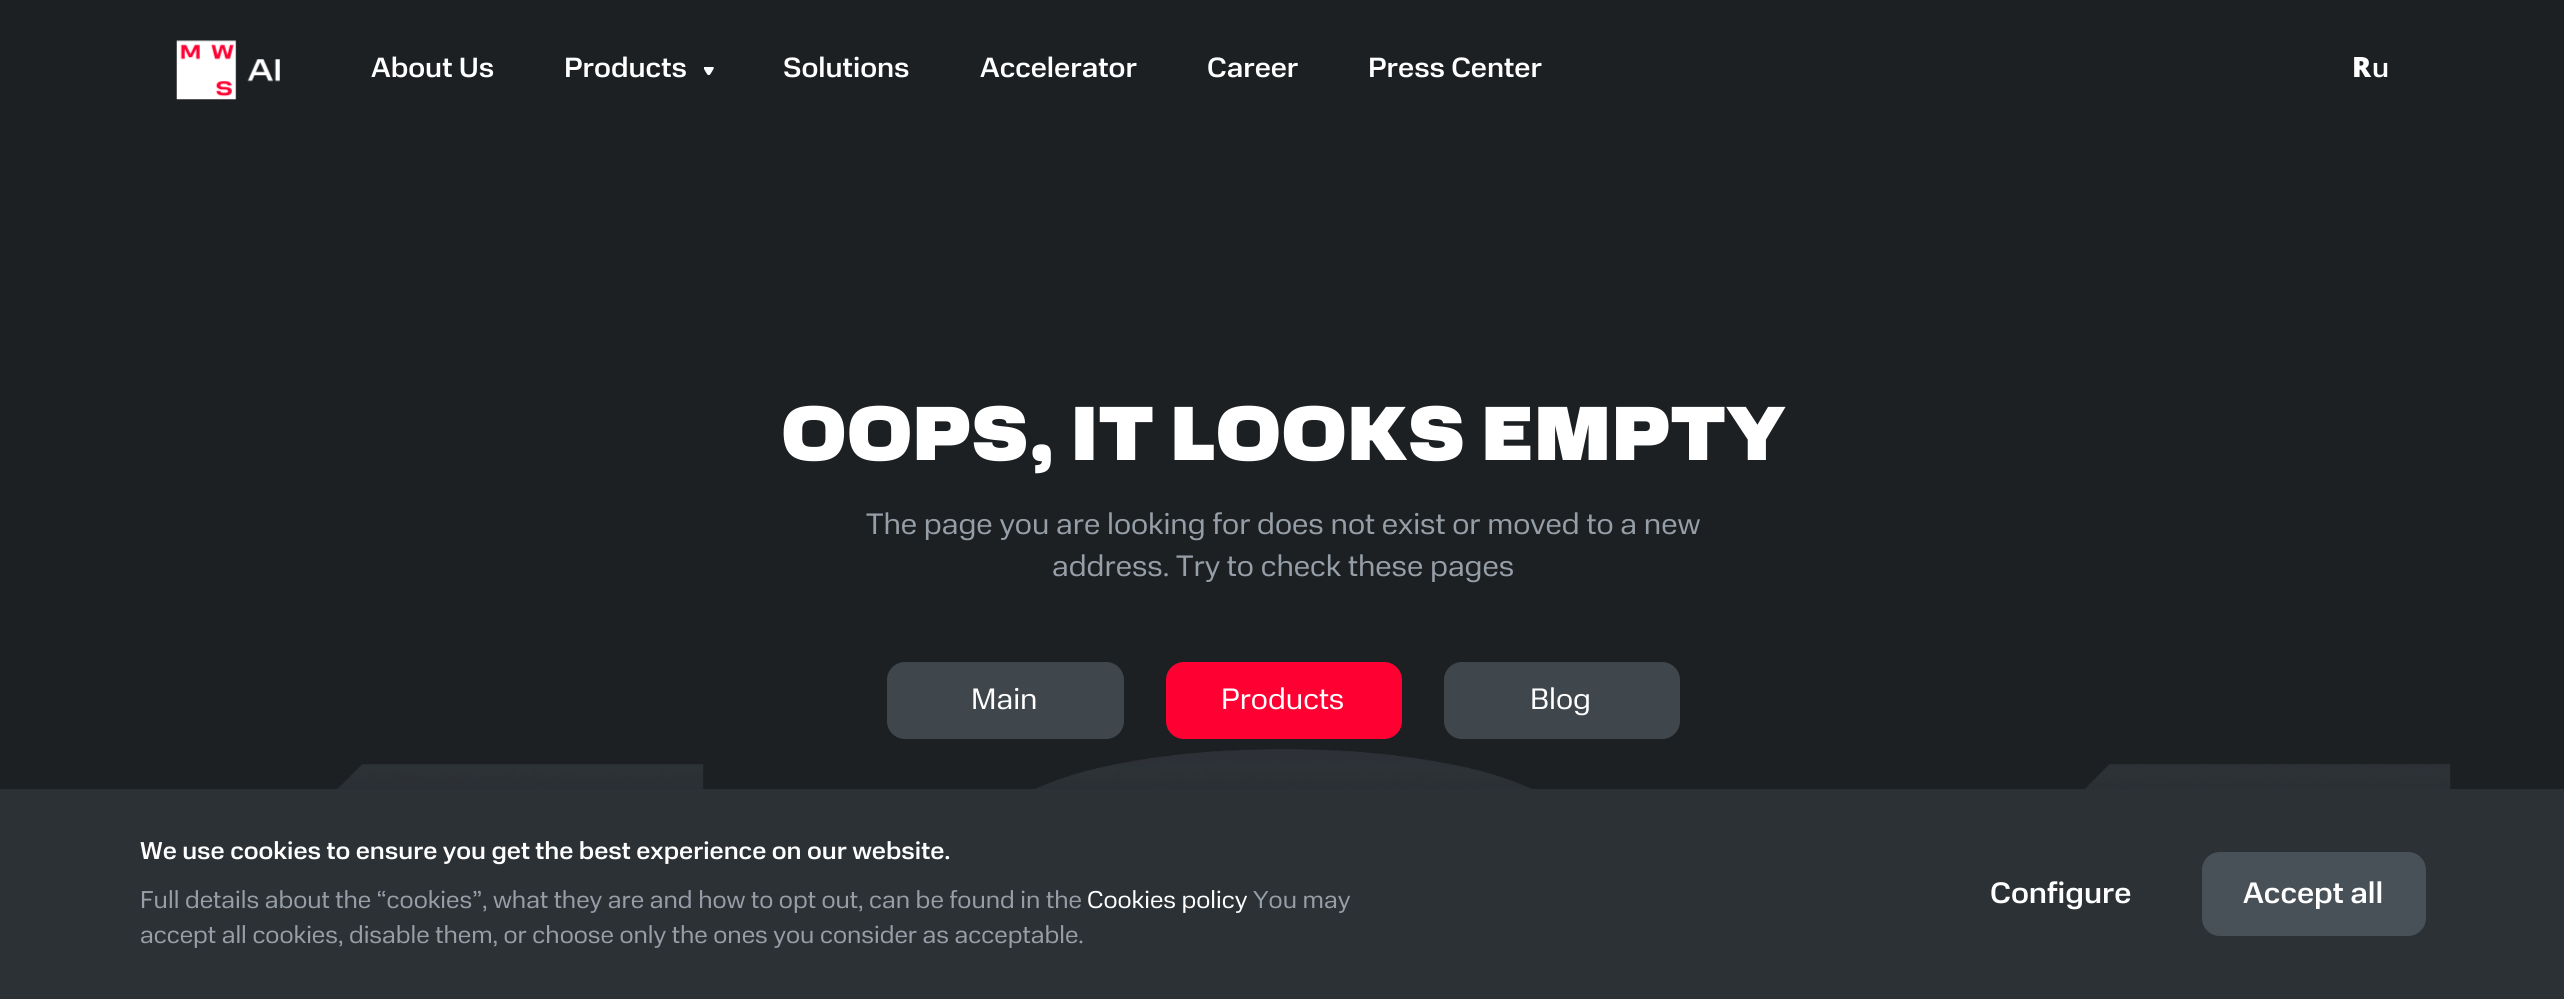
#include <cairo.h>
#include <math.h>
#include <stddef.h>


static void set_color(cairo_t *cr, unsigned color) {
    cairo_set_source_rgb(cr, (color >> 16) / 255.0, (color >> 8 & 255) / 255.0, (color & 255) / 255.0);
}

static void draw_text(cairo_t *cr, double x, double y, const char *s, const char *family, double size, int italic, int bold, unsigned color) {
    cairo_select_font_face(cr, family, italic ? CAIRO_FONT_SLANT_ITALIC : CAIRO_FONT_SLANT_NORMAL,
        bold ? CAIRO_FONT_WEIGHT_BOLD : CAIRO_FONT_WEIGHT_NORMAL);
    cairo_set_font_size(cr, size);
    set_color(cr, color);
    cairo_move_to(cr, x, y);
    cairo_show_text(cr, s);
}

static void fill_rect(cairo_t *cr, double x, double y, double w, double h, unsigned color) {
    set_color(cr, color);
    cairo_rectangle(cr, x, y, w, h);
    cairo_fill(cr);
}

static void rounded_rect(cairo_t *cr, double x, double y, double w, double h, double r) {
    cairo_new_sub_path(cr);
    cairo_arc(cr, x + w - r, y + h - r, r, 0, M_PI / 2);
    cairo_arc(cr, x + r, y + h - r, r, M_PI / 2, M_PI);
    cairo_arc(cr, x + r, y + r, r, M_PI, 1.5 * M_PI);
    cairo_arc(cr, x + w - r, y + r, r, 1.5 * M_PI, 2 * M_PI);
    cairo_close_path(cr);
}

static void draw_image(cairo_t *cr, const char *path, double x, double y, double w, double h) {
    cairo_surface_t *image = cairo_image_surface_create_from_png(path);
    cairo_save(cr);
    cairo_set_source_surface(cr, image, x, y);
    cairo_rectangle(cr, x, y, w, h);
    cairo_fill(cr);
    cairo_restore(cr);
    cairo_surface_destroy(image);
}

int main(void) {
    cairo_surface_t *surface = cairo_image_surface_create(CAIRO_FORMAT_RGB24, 2564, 999);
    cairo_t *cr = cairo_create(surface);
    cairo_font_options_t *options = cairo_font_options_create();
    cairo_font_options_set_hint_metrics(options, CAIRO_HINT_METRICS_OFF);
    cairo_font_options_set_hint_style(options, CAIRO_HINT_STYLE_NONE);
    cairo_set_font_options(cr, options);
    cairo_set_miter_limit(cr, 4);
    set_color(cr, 0x1D2023);
    cairo_paint(cr);
    draw_image(cr, "assets/img1.png", 176, 40, 104, 60);
    draw_text(cr, 371, 77, "About Us", "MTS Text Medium", 28, 0, 0, 0xFFFFFF);
    draw_text(cr, 564, 77, "Products", "MTS Text Medium", 28, 0, 0, 0xFFFFFF);
    draw_image(cr, "assets/img2.png", 704, 67, 10, 8);
    draw_text(cr, 783, 77, "Solutions", "MTS Text Medium", 28, 0, 0, 0xFFFFFF);
    draw_text(cr, 980, 77, "Accelerator", "MTS Text Medium", 28, 0, 0, 0xFFFFFF);
    draw_text(cr, 1207, 77, "Career", "MTS Text Medium", 28, 0, 0, 0xFFFFFF);
    draw_text(cr, 1368, 77, "Press Center", "MTS Text Medium", 28, 0, 0, 0xFFFFFF);
    draw_text(cr, 2352, 77, "R", "Noto Sans Black", 28, 0, 0, 0xFFFFFF);
    draw_text(cr, 2372, 77, "u", "MTS Text Medium", 28, 0, 0, 0xFFFFFF);
    draw_text(cr, 781, 460, "OOPS, IT LOOKS EMPTY", "MTS Text Black", 77, 0, 0, 0xFFFFFF);
    draw_text(cr, 866, 534, "The page you are looking for does not exist or moved to a new", "MTS Text", 29.75, 0, 0, 0x969FA8);
    draw_text(cr, 1052, 576, "address. Try to check these pages", "MTS Text", 29.75, 0, 0, 0x969FA8);
    set_color(cr, 0x3F464C);
    rounded_rect(cr, 887, 662, 237, 77, 18);
    cairo_fill(cr);
    draw_text(cr, 971, 709, "Main", "MTS Text", 29.75, 0, 0, 0xFFFFFF);
    set_color(cr, 0xFF0032);
    rounded_rect(cr, 1166, 662, 236, 77, 18);
    cairo_fill(cr);
    draw_text(cr, 1221, 709, "Products", "MTS Text", 29.75, 0, 0, 0xFFFFFF);
    set_color(cr, 0x3F464C);
    rounded_rect(cr, 1444, 662, 236, 77, 18);
    cairo_fill(cr);
    draw_text(cr, 1530, 709, "Blog", "MTS Text", 29.75, 0, 0, 0xFFFFFF);
    draw_image(cr, "assets/img3.png", 337, 749, 2114, 40);
    fill_rect(cr, 0, 789, 2564, 210, 0x2C3135);
    draw_text(cr, 140, 859, "We use cookies to ensure you get the best experience on our website.", "MTS Text Medium", 24.5, 0, 0, 0xFFFFFF);
    draw_text(cr, 140, 908, "Full details about the “cookies”, what they are and how to opt out, can be found in the", "MTS Text", 24.5, 0, 0, 0x969FA8);
    draw_text(cr, 1087, 908, "Cookies policy", "MTS Text", 24.5, 0, 0, 0xFFFFFF);
    draw_text(cr, 1253, 908, "You may", "MTS Text", 24.5, 0, 0, 0x969FA8);
    draw_text(cr, 140, 943, "accept all cookies, disable them, or choose only the ones you consider as acceptable.", "MTS Text", 24.5, 0, 0, 0x969FA8);
    draw_text(cr, 1990, 903, "Configure", "MTS Text Medium", 29.75, 0, 0, 0xFFFFFF);
    set_color(cr, 0x495158);
    rounded_rect(cr, 2202, 852, 224, 84, 18);
    cairo_fill(cr);
    draw_text(cr, 2243, 903, "Accept all", "MTS Text Medium", 29.75, 0, 0, 0xFFFFFF);
    cairo_surface_write_to_png(surface, "output.png");
    cairo_font_options_destroy(options);
    cairo_destroy(cr);
    cairo_surface_destroy(surface);
    return 0;
}
